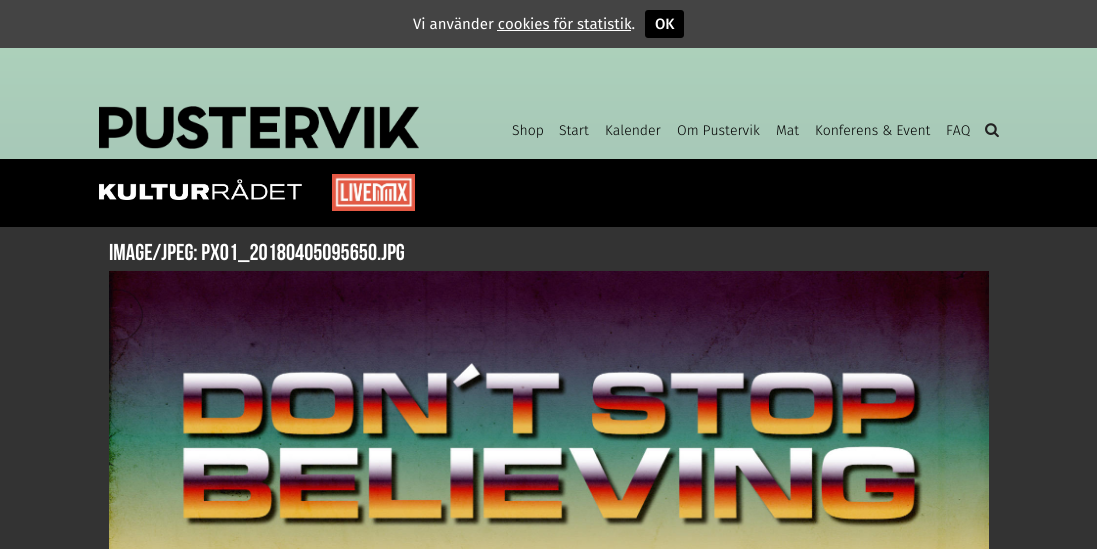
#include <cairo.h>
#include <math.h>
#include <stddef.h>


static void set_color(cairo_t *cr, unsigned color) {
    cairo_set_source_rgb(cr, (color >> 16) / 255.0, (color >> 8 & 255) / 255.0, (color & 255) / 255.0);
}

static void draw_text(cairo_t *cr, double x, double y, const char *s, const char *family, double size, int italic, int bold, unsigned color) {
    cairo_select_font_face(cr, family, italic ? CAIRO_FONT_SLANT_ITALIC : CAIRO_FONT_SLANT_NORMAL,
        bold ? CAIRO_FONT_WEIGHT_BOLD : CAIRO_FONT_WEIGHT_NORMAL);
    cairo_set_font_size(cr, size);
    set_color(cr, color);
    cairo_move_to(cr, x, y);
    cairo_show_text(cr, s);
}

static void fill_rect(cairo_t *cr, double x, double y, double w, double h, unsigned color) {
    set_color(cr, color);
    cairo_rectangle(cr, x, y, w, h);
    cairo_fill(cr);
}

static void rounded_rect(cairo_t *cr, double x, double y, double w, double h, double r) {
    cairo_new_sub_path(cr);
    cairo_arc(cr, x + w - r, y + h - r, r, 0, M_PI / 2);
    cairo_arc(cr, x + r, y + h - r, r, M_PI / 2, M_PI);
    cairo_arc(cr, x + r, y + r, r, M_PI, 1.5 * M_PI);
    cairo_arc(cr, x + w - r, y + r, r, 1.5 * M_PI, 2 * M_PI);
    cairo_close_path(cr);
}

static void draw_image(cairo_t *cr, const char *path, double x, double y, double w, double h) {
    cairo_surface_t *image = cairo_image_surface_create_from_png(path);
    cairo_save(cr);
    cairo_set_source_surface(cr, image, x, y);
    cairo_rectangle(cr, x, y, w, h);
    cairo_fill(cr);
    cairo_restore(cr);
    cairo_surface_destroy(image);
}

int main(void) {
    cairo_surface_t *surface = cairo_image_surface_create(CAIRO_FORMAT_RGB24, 1097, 549);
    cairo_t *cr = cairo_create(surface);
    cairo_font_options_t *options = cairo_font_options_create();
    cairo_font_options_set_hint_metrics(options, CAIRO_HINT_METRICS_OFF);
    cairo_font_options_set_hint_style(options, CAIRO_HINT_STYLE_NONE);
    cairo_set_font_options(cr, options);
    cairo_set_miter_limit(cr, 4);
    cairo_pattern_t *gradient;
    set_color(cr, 0xFFFFFF);
    cairo_paint(cr);
    gradient = cairo_pattern_create_linear(549, 0, 549, 549);
    cairo_pattern_add_color_stop_rgba(gradient, 0, 0.682, 0.831, 0.737, 1);
    cairo_pattern_add_color_stop_rgba(gradient, 1, 0.588, 0.667, 0.675, 1);
    cairo_set_source(cr, gradient);
    cairo_pattern_destroy(gradient);
    cairo_rectangle(cr, 0, 48, 1097, 111);
    cairo_fill(cr);
    fill_rect(cr, 0, 0, 1097, 48, 0x444444);
    draw_text(cr, 413, 29, "Vi använder cookies för statistik.", "Fira Sans", 15, 0, 0, 0xFFFFFF);
    set_color(cr, 0x000000);
    rounded_rect(cr, 645, 10, 39, 28, 3);
    cairo_fill(cr);
    draw_text(cr, 655, 29, "OK", "Fira Sans Medium", 15, 0, 0, 0xFFFFFF);
    fill_rect(cr, 497, 30, 134, 1, 0xFFFFFF);
    fill_rect(cr, 0, 159, 1097, 68, 0x000000);
    draw_image(cr, "assets/img1.png", 99, 106, 320, 43);
    draw_image(cr, "assets/img2.png", 985, 123, 14, 15);
    draw_text(cr, 512, 135, "Shop", "Fira Sans Light", 14, 0, 0, 0x000000);
    draw_text(cr, 559, 135, "Start", "Fira Sans Light", 14, 0, 0, 0x000000);
    draw_text(cr, 605, 135, "Kalender", "Fira Sans Light", 14, 0, 0, 0x000000);
    draw_text(cr, 677, 135, "Om Pustervik", "Fira Sans Light", 14, 0, 0, 0x000000);
    draw_text(cr, 776, 135, "Mat", "Fira Sans Light", 14, 0, 0, 0x000000);
    draw_text(cr, 815, 135, "Konferens & Event", "Fira Sans Light", 14, 0, 0, 0x000000);
    draw_text(cr, 946, 135, "FAQ", "Fira Sans Light", 14, 0, 0, 0x000000);
    draw_image(cr, "assets/img3.png", 99, 179, 203, 21);
    draw_image(cr, "assets/img4.png", 332, 174, 83, 37);
    fill_rect(cr, 0, 227, 1097, 322, 0x333333);
    draw_text(cr, 109, 260, "image/jpeg: PX01_20180405095650.jpg", "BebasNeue", 23, 0, 0, 0xFFFFFF);
    draw_image(cr, "assets/img5.png", 109, 271, 880, 278);
    cairo_surface_write_to_png(surface, "output.png");
    cairo_font_options_destroy(options);
    cairo_destroy(cr);
    cairo_surface_destroy(surface);
    return 0;
}
